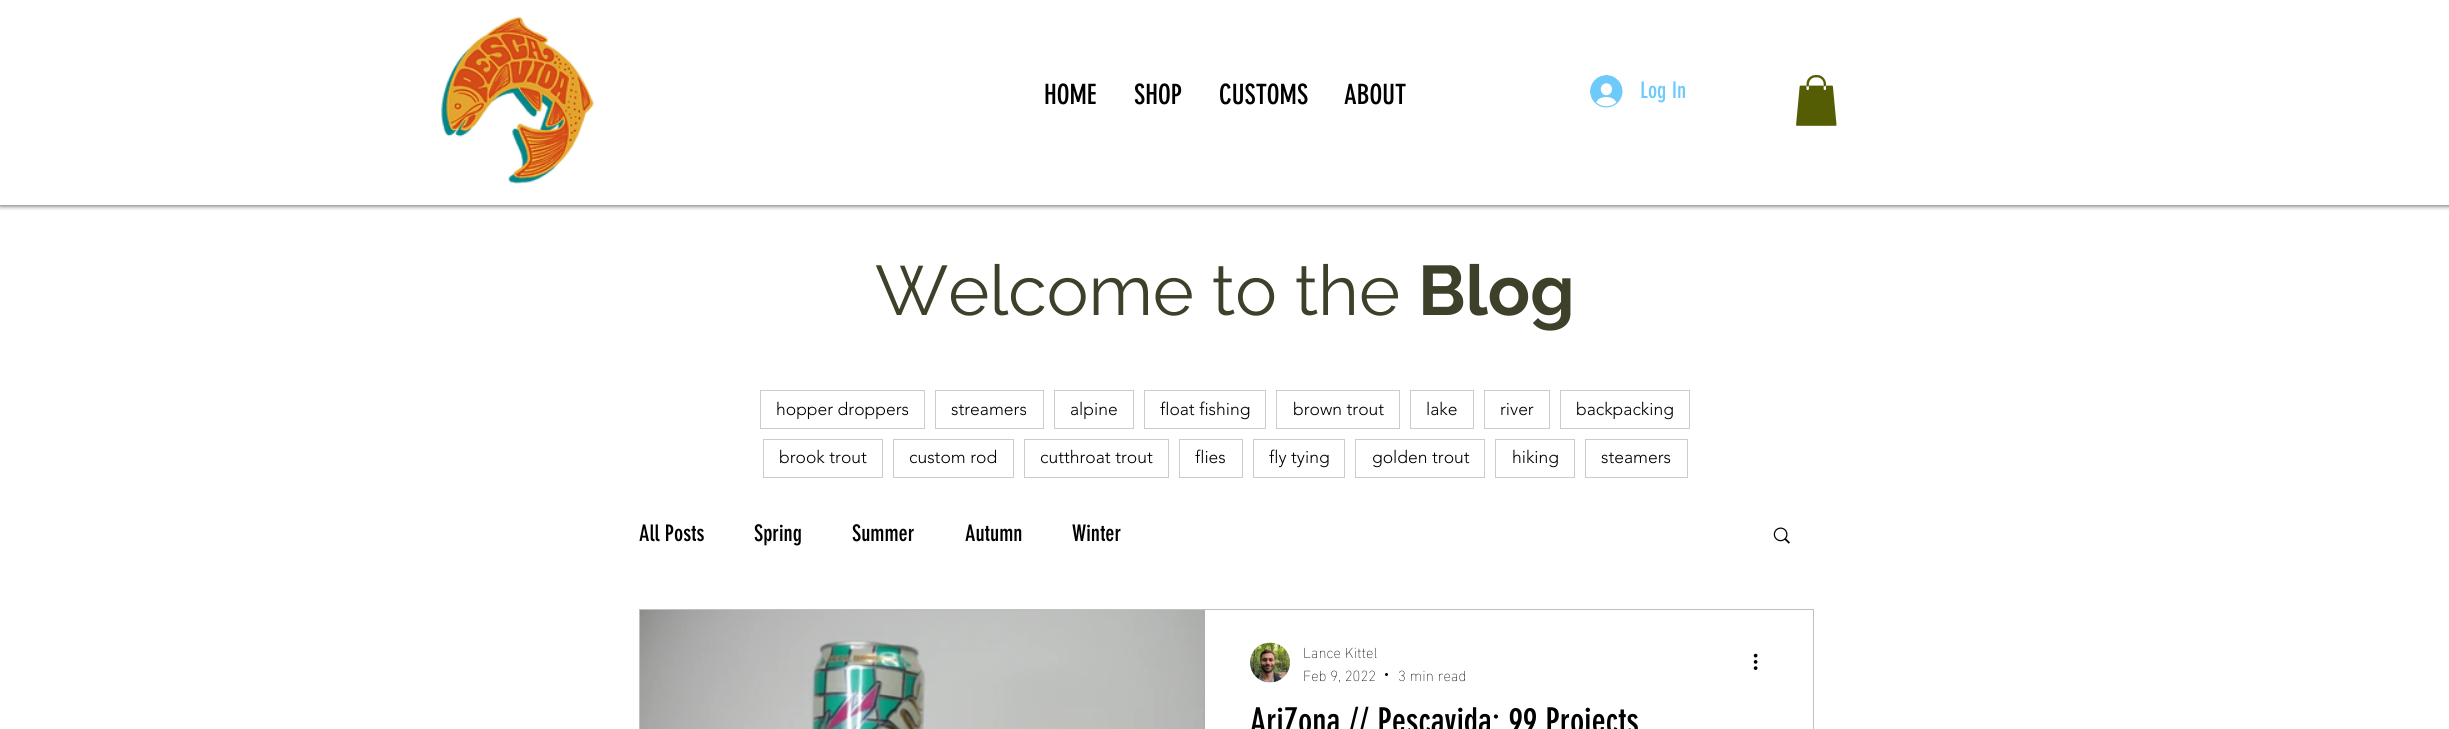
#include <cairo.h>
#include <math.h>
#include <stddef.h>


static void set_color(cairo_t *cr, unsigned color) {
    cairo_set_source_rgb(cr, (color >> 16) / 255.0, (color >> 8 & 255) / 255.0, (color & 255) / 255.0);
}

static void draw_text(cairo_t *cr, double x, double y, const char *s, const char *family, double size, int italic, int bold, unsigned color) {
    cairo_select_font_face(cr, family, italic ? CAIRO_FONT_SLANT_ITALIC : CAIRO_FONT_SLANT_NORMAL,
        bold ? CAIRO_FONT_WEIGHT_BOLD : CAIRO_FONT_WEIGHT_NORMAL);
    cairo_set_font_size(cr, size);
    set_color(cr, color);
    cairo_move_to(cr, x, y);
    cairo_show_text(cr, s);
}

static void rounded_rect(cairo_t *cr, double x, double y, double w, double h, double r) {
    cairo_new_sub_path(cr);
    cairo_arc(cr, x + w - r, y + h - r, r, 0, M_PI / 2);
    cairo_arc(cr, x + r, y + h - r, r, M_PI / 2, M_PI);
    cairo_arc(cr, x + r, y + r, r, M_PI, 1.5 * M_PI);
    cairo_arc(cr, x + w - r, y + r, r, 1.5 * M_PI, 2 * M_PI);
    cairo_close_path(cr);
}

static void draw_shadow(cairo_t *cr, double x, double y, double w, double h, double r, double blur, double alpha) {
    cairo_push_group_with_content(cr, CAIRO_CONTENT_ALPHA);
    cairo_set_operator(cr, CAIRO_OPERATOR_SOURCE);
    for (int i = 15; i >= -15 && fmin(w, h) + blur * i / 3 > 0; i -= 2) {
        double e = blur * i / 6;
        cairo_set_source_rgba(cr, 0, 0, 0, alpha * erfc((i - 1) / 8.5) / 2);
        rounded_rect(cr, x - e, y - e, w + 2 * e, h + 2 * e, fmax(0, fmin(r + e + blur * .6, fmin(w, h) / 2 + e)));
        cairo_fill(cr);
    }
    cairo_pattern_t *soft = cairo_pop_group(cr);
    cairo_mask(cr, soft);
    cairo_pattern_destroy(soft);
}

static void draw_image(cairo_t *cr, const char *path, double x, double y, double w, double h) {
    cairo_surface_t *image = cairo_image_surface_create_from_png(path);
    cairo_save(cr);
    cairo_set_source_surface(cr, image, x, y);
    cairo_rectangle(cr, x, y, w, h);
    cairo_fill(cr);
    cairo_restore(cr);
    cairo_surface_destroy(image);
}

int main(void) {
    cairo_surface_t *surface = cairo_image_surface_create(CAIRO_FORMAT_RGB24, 2449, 729);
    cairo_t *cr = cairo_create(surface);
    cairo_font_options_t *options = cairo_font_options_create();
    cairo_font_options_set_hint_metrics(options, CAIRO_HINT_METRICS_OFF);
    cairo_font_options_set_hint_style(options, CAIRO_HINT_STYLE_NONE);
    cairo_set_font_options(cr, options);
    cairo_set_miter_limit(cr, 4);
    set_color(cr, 0xFFFFFF);
    cairo_paint(cr);
    cairo_save(cr);
    cairo_rectangle(cr, 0, 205, 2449, 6);
    cairo_clip(cr);
    set_color(cr, 0x000000);
    draw_shadow(cr, 0, 1, 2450, 205, 0, 2.5, 0.6);
    cairo_restore(cr);
    draw_image(cr, "assets/img1.png", 441, 16, 153, 168);
    draw_text(cr, 1044, 104, "HOME", "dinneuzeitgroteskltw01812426", 27.5, 0, 0, 0x000000);
    draw_text(cr, 1134, 104, "SHOP", "dinneuzeitgroteskltw01812426", 27.5, 0, 0, 0x000000);
    draw_text(cr, 1219, 104, "CUSTOMS", "dinneuzeitgroteskltw01812426", 27.5, 0, 0, 0x000000);
    draw_text(cr, 1344, 104, "ABOUT", "dinneuzeitgroteskltw01812426", 27.5, 0, 0, 0x000000);
    draw_image(cr, "assets/img2.png", 1590, 75, 33, 33);
    draw_text(cr, 1640, 98, "Log In", "dinneuzeitgroteskltw01812426", 22.5, 0, 0, 0x6DCAFB);
    draw_image(cr, "assets/img3.png", 1796, 75, 41, 51);
    draw_text(cr, 875, 315, "Welcome to the", "Raleway", 70, 0, 0, 0x3F402A);
    draw_text(cr, 1418, 315, "Blog", "Raleway", 70, 0, 1, 0x3F402A);
    cairo_rectangle(cr, 760.5, 390.5, 164, 38);
    set_color(cr, 0xCCCCCC);
    cairo_set_line_width(cr, 1);
    cairo_stroke(cr);
    draw_text(cr, 776, 415, "hopper droppers", "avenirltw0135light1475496 Light", 17.5, 0, 0, 0x000000);
    cairo_rectangle(cr, 935.5, 390.5, 108, 38);
    set_color(cr, 0xCCCCCC);
    cairo_stroke(cr);
    draw_text(cr, 951, 415, "streamers", "avenirltw0135light1475496 Light", 17.5, 0, 0, 0x000000);
    cairo_rectangle(cr, 1054.5, 390.5, 79, 38);
    set_color(cr, 0xCCCCCC);
    cairo_stroke(cr);
    draw_text(cr, 1070, 415, "alpine", "avenirltw0135light1475496 Light", 17.5, 0, 0, 0x000000);
    cairo_rectangle(cr, 1144.5, 390.5, 121, 38);
    set_color(cr, 0xCCCCCC);
    cairo_stroke(cr);
    draw_text(cr, 1160, 415, "float fishing", "avenirltw0135light1475496 Light", 17.5, 0, 0, 0x000000);
    cairo_rectangle(cr, 1276.5, 390.5, 123, 38);
    set_color(cr, 0xCCCCCC);
    cairo_stroke(cr);
    draw_text(cr, 1293, 415, "brown trout", "avenirltw0135light1475496 Light", 17.5, 0, 0, 0x000000);
    cairo_rectangle(cr, 1410.5, 390.5, 63, 38);
    set_color(cr, 0xCCCCCC);
    cairo_stroke(cr);
    draw_text(cr, 1426, 415, "lake", "avenirltw0135light1475496 Light", 17.5, 0, 0, 0x000000);
    cairo_rectangle(cr, 1484.5, 390.5, 65, 38);
    set_color(cr, 0xCCCCCC);
    cairo_stroke(cr);
    draw_text(cr, 1500, 415, "river", "avenirltw0135light1475496 Light", 17.5, 0, 0, 0x000000);
    cairo_rectangle(cr, 1560.5, 390.5, 129, 38);
    set_color(cr, 0xCCCCCC);
    cairo_stroke(cr);
    draw_text(cr, 1576, 415, "backpacking", "avenirltw0135light1475496 Light", 17.5, 0, 0, 0x000000);
    cairo_rectangle(cr, 763.5, 439.5, 119, 38);
    set_color(cr, 0xCCCCCC);
    cairo_stroke(cr);
    draw_text(cr, 779, 463, "brook trout", "avenirltw0135light1475496 Light", 17.5, 0, 0, 0x000000);
    cairo_rectangle(cr, 893.5, 439.5, 120, 38);
    set_color(cr, 0xCCCCCC);
    cairo_stroke(cr);
    draw_text(cr, 909, 463, "custom rod", "avenirltw0135light1475496 Light", 17.5, 0, 0, 0x000000);
    cairo_rectangle(cr, 1024.5, 439.5, 144, 38);
    set_color(cr, 0xCCCCCC);
    cairo_stroke(cr);
    draw_text(cr, 1040, 463, "cutthroat trout", "avenirltw0135light1475496 Light", 17.5, 0, 0, 0x000000);
    cairo_rectangle(cr, 1179.5, 439.5, 63, 38);
    set_color(cr, 0xCCCCCC);
    cairo_stroke(cr);
    draw_text(cr, 1195, 463, "flies", "avenirltw0135light1475496 Light", 17.5, 0, 0, 0x000000);
    cairo_rectangle(cr, 1253.5, 439.5, 91, 38);
    set_color(cr, 0xCCCCCC);
    cairo_stroke(cr);
    draw_text(cr, 1269, 463, "fly tying", "avenirltw0135light1475496 Light", 17.5, 0, 0, 0x000000);
    cairo_rectangle(cr, 1355.5, 439.5, 129, 38);
    set_color(cr, 0xCCCCCC);
    cairo_stroke(cr);
    draw_text(cr, 1372, 463, "golden trout", "avenirltw0135light1475496 Light", 17.5, 0, 0, 0x000000);
    cairo_rectangle(cr, 1495.5, 439.5, 79, 38);
    set_color(cr, 0xCCCCCC);
    cairo_stroke(cr);
    draw_text(cr, 1512, 463, "hiking", "avenirltw0135light1475496 Light", 17.5, 0, 0, 0x000000);
    cairo_rectangle(cr, 1585.5, 439.5, 102, 38);
    set_color(cr, 0xCCCCCC);
    cairo_stroke(cr);
    draw_text(cr, 1601, 463, "steamers", "avenirltw0135light1475496 Light", 17.5, 0, 0, 0x000000);
    draw_text(cr, 639, 541, "All Posts", "dinneuzeitgroteskltw01812426", 22.5, 0, 0, 0x000000);
    draw_text(cr, 754, 541, "Spring", "dinneuzeitgroteskltw01812426", 22.5, 0, 0, 0x000000);
    draw_text(cr, 852, 541, "Summer", "dinneuzeitgroteskltw01812426", 22.5, 0, 0, 0x000000);
    draw_text(cr, 965, 541, "Autumn", "dinneuzeitgroteskltw01812426", 22.5, 0, 0, 0x000000);
    draw_text(cr, 1072, 541, "Winter", "dinneuzeitgroteskltw01812426", 22.5, 0, 0, 0x000000);
    draw_image(cr, "assets/img4.png", 1773, 527, 17, 17);
    cairo_rectangle(cr, 639.5, 609.5, 1174, 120);
    set_color(cr, 0xBFBFBF);
    cairo_stroke(cr);
    draw_image(cr, "assets/img5.png", 640, 610, 565, 119);
    draw_image(cr, "assets/img6.png", 1250, 642, 40, 41);
    draw_text(cr, 1303, 658, "Lance Kittel", "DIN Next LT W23 ExtraLight", 15, 0, 0, 0x000000);
    draw_text(cr, 1303, 681, "Feb 9, 2022", "DIN Next LT W23 ExtraLight", 15, 0, 0, 0x000000);
    cairo_new_path(cr);
    cairo_arc(cr, 1386.5, 674.5, 1.5, 0, 2 * M_PI);
    cairo_fill(cr);
    draw_text(cr, 1398, 681, "3 min read", "DIN Next LT W23 ExtraLight", 15, 0, 0, 0x000000);
    draw_image(cr, "assets/img7.png", 1753, 653, 5, 17);
    draw_text(cr, 1250, 733, "AriZona // Pescavida: 99 Projects", "dinneuzeitgroteskltw01812426", 35, 0, 0, 0x000000);
    cairo_surface_write_to_png(surface, "output.png");
    cairo_font_options_destroy(options);
    cairo_destroy(cr);
    cairo_surface_destroy(surface);
    return 0;
}
